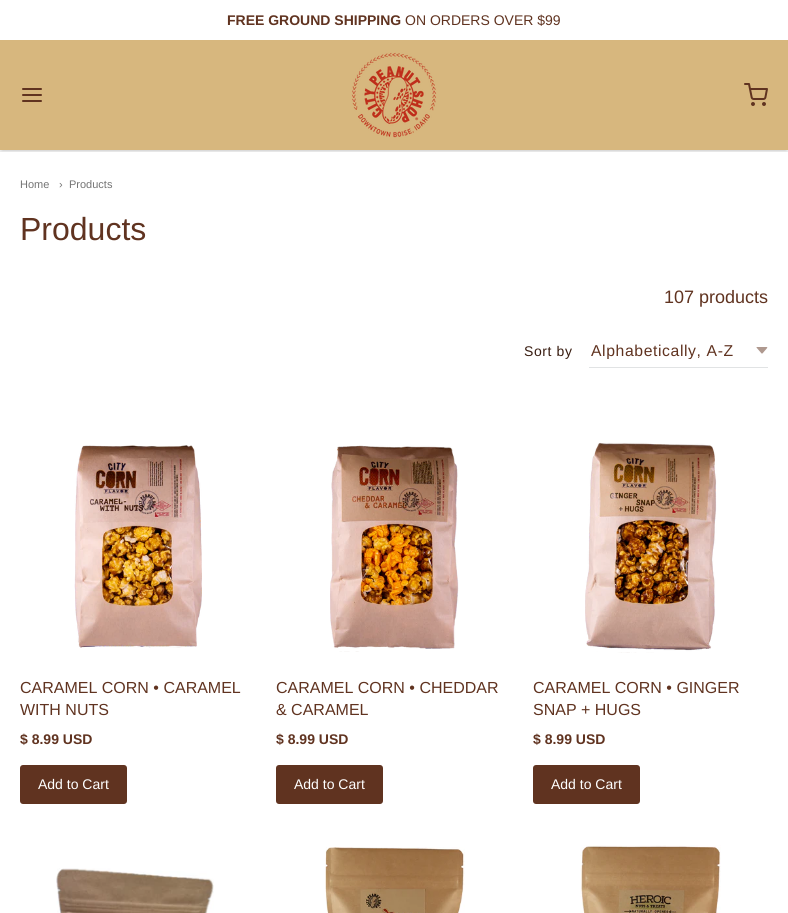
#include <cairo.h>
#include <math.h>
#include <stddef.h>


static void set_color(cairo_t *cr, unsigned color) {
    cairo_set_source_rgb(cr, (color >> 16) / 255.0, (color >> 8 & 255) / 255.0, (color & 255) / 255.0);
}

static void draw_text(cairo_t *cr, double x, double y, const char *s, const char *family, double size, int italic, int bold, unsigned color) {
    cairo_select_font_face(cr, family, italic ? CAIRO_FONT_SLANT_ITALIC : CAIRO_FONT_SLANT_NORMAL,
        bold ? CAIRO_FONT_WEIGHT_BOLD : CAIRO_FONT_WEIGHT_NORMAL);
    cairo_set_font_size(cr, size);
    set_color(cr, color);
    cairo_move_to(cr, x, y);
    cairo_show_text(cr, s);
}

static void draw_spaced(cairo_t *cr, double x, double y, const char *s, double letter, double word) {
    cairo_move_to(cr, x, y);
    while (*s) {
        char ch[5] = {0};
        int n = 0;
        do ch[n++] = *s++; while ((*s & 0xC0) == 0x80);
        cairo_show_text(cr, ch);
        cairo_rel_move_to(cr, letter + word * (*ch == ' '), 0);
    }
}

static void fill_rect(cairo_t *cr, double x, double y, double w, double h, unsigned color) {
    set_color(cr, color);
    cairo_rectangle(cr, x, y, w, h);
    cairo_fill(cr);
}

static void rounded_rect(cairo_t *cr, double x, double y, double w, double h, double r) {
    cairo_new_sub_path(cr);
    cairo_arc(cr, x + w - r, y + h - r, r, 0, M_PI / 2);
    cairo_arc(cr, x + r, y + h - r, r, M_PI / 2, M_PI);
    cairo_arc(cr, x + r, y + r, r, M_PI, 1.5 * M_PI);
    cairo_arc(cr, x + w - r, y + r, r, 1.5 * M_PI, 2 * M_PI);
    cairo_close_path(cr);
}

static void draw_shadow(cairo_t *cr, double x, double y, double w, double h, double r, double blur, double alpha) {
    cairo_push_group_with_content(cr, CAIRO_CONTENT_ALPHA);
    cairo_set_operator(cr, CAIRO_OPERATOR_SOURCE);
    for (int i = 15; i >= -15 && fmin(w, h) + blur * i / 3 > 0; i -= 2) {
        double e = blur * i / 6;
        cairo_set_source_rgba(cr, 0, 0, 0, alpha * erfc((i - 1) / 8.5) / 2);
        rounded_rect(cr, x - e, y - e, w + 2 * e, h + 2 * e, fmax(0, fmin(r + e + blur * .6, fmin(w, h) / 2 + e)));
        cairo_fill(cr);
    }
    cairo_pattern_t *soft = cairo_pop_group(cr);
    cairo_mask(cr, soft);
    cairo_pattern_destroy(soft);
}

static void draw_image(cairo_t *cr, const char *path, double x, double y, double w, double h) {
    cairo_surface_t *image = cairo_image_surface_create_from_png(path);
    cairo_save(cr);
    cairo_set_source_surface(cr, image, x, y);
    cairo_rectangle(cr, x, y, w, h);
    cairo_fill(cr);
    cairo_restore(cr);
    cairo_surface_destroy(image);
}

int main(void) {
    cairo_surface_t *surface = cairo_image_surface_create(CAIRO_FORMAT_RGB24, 788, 913);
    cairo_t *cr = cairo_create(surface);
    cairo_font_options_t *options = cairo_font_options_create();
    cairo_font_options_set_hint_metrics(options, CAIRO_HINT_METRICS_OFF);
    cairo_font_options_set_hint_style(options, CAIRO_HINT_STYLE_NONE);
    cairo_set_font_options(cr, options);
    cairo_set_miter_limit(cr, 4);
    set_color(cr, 0xFFFFFF);
    cairo_paint(cr);
    fill_rect(cr, 0, 150, 788, 1, 0xEBEBEB);
    draw_text(cr, 227, 25, "FREE GROUND SHIPPING", "Liberation Sans", 14, 0, 1, 0x603320);
    draw_text(cr, 405, 25, "ON ORDERS OVER $99", "Liberation Sans", 14, 0, 0, 0x603320);
    set_color(cr, 0x000000);
    draw_shadow(cr, 2, 44, 784, 106, 0, 1, 0.2);
    fill_rect(cr, 0, 40, 788, 110, 0xD7B77E);
    cairo_new_path(cr);
    cairo_move_to(cr, 23, 95);
    cairo_line_to(cr, 41, 95);
    cairo_move_to(cr, 23, 89);
    cairo_line_to(cr, 41, 89);
    cairo_move_to(cr, 23, 101);
    cairo_line_to(cr, 41, 101);
    set_color(cr, 0x603320);
    cairo_set_line_cap(cr, CAIRO_LINE_CAP_ROUND);
    cairo_set_line_join(cr, CAIRO_LINE_JOIN_ROUND);
    cairo_stroke(cr);
    draw_image(cr, "assets/img1.png", 351, 52, 86, 86);
    draw_image(cr, "assets/img2.png", 744, 83, 24, 23);
    cairo_set_source_rgba(cr, 0, 0, 0, 0.08);
    cairo_rectangle(cr, 0, 151, 788, 1);
    cairo_fill(cr);
    draw_text(cr, 20, 188, "Home", "Liberation Sans", 11, 0, 0, 0x747474);
    draw_text(cr, 59, 188, "›", "Liberation Sans", 11, 0, 0, 0x747474);
    draw_text(cr, 69, 188, "Products", "Liberation Sans", 11, 0, 0, 0x747474);
    draw_text(cr, 20, 240, "Products", "Liberation Sans", 32, 0, 0, 0x603320);
    draw_text(cr, 664, 303, "107 products", "Liberation Sans", 18, 0, 0, 0x603320);
    cairo_set_font_size(cr, 14);
    set_color(cr, 0x381C10);
    draw_spaced(cr, 524, 356, "Sort by", 0.6, 0);
    draw_image(cr, "assets/img3.png", 756, 347, 12, 7);
    fill_rect(cr, 589, 367, 179, 1, 0xE1E3E4);
    cairo_save(cr);
    cairo_rectangle(cr, 591, 342, 144, 17);
    cairo_clip(cr);
    cairo_set_font_size(cr, 15.75);
    set_color(cr, 0x603320);
    draw_spaced(cr, 591, 356, "Alphabetically, A-Z", 0.6, 0);
    cairo_restore(cr);
    draw_image(cr, "assets/img4.png", 74, 445, 128, 203);
    draw_text(cr, 20, 693, "CARAMEL CORN • CARAMEL", "Liberation Sans", 16, 0, 0, 0x603320);
    draw_text(cr, 20, 715, "WITH NUTS", "Liberation Sans", 16, 0, 0, 0x603320);
    draw_text(cr, 20, 744, "$ 8.99 USD", "Liberation Sans", 14, 0, 1, 0x603320);
    rounded_rect(cr, 21, 766, 105, 37, 2);
    cairo_fill_preserve(cr);
    cairo_set_line_cap(cr, CAIRO_LINE_CAP_BUTT);
    cairo_set_line_join(cr, CAIRO_LINE_JOIN_MITER);
    cairo_stroke(cr);
    draw_text(cr, 38, 789, "Add to Cart", "Liberation Sans", 14, 0, 0, 0xFFFFFF);
    draw_image(cr, "assets/img5.png", 330, 445, 129, 207);
    draw_text(cr, 276, 693, "CARAMEL CORN • CHEDDAR", "Liberation Sans", 16, 0, 0, 0x603320);
    draw_text(cr, 276, 715, "& CARAMEL", "Liberation Sans", 16, 0, 0, 0x603320);
    draw_text(cr, 276, 744, "$ 8.99 USD", "Liberation Sans", 14, 0, 1, 0x603320);
    rounded_rect(cr, 277, 766, 105, 37, 2);
    cairo_fill_preserve(cr);
    cairo_stroke(cr);
    draw_text(cr, 294, 789, "Add to Cart", "Liberation Sans", 14, 0, 0, 0xFFFFFF);
    draw_image(cr, "assets/img6.png", 585, 442, 132, 211);
    draw_text(cr, 533, 693, "CARAMEL CORN • GINGER", "Liberation Sans", 16, 0, 0, 0x603320);
    draw_text(cr, 533, 715, "SNAP + HUGS", "Liberation Sans", 16, 0, 0, 0x603320);
    draw_text(cr, 533, 744, "$ 8.99 USD", "Liberation Sans", 14, 0, 1, 0x603320);
    rounded_rect(cr, 534, 766, 105, 37, 2);
    cairo_fill_preserve(cr);
    cairo_stroke(cr);
    draw_text(cr, 551, 789, "Add to Cart", "Liberation Sans", 14, 0, 0, 0xFFFFFF);
    draw_image(cr, "assets/img7.png", 56, 868, 158, 45);
    draw_image(cr, "assets/img8.png", 325, 847, 140, 66);
    draw_image(cr, "assets/img9.png", 580, 845, 141, 68);
    cairo_surface_write_to_png(surface, "output.png");
    cairo_font_options_destroy(options);
    cairo_destroy(cr);
    cairo_surface_destroy(surface);
    return 0;
}
